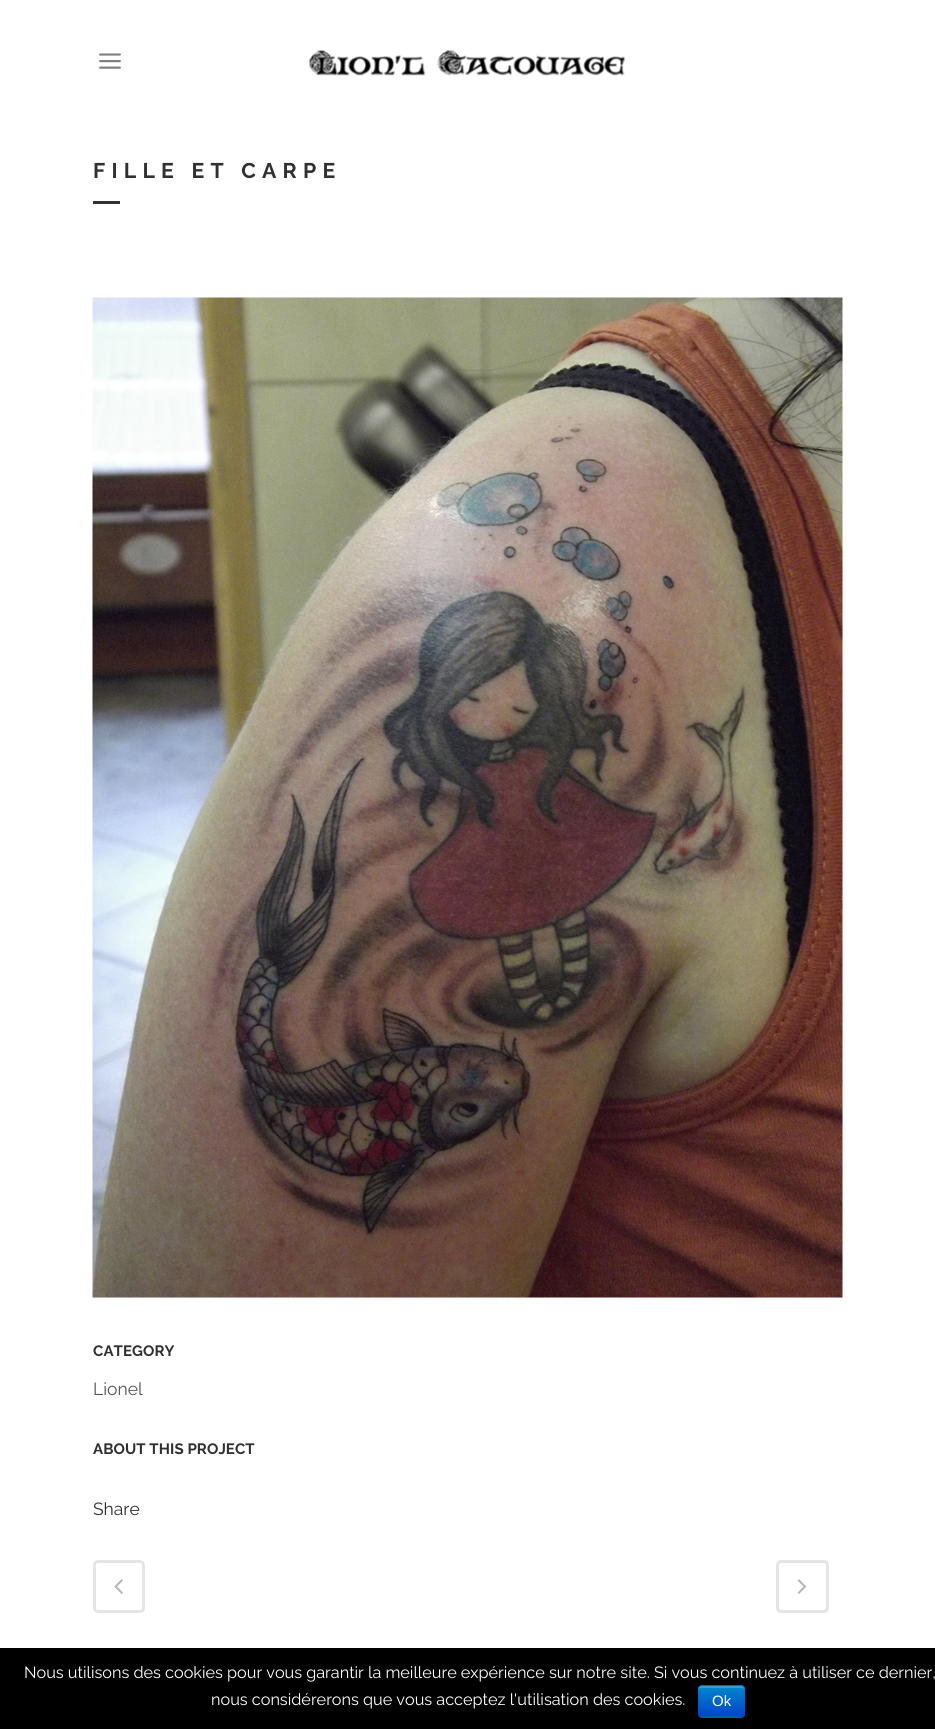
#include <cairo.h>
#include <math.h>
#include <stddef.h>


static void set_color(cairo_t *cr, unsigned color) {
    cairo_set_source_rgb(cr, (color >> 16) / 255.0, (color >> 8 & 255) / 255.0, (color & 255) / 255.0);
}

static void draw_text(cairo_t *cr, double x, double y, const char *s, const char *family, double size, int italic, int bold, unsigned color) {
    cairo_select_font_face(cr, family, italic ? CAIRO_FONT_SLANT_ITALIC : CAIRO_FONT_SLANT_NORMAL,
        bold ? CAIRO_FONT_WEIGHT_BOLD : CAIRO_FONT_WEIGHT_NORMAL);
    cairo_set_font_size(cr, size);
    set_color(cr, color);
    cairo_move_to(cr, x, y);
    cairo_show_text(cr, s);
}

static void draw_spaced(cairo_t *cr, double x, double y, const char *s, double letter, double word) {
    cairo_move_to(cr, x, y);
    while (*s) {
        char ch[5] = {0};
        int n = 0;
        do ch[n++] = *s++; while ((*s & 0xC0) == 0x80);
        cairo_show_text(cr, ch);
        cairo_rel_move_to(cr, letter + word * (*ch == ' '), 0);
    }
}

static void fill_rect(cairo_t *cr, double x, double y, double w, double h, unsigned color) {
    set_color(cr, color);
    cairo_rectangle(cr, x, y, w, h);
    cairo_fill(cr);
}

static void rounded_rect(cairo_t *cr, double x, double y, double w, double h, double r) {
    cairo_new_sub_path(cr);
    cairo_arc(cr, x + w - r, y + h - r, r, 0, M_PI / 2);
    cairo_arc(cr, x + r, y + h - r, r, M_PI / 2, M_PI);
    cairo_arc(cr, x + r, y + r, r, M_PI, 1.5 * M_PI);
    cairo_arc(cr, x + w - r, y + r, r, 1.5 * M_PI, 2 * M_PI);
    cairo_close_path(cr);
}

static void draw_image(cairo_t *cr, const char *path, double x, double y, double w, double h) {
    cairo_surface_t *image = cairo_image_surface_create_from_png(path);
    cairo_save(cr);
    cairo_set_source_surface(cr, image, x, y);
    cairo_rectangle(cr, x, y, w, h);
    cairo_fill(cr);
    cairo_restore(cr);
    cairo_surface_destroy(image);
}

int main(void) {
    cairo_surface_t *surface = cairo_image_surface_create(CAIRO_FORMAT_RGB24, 935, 1729);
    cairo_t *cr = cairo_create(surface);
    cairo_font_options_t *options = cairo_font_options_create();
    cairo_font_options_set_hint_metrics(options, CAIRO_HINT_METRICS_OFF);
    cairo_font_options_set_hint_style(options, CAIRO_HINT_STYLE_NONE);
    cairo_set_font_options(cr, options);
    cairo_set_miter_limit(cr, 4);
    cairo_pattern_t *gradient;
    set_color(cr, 0xFFFFFF);
    cairo_paint(cr);
    draw_image(cr, "assets/img1.png", 99, 53, 22, 16);
    draw_image(cr, "assets/img2.png", 309, 50, 316, 26);
    cairo_select_font_face(cr, "Raleway", CAIRO_FONT_SLANT_NORMAL, CAIRO_FONT_WEIGHT_BOLD);
    cairo_set_font_size(cr, 21.25);
    set_color(cr, 0x303030);
    draw_spaced(cr, 93, 178, "FILLE ET CARPE", 6.25, 0);
    fill_rect(cr, 93, 201, 27, 3, 0x303030);
    draw_image(cr, "assets/img3.png", 92, 297, 751, 1001);
    cairo_set_font_size(cr, 15);
    draw_spaced(cr, 93, 1356, "CATEGORY", 0.1, 0);
    draw_text(cr, 93, 1395, "Lionel", "Raleway", 17.5, 0, 0, 0x565656);
    cairo_select_font_face(cr, "Raleway", CAIRO_FONT_SLANT_NORMAL, CAIRO_FONT_WEIGHT_BOLD);
    cairo_set_font_size(cr, 15);
    set_color(cr, 0x303030);
    draw_spaced(cr, 93, 1454, "ABOUT THIS PROJECT", 0.1, 0);
    draw_text(cr, 93, 1515, "Share", "Raleway", 17.5, 0, 0, 0x303030);
    rounded_rect(cr, 94.5, 1561.5, 49, 50, 3.5);
    set_color(cr, 0xE5E5E5);
    cairo_set_line_width(cr, 3);
    cairo_stroke(cr);
    draw_image(cr, "assets/img4.png", 114, 1579, 9, 15);
    rounded_rect(cr, 777.5, 1561.5, 50, 50, 3.5);
    cairo_stroke(cr);
    draw_image(cr, "assets/img5.png", 797, 1579, 10, 15);
    fill_rect(cr, 0, 1648, 935, 81, 0x000000);
    draw_text(cr, 24, 1678, "Nous utilisons des cookies pour vous garantir la meilleure expérience sur notre site. Si vous continuez à utiliser ce dernier,", "Raleway", 16.25, 0, 0, 0xFFFFFF);
    draw_text(cr, 211, 1705, "nous considérerons que vous acceptez l'utilisation des cookies.", "Raleway", 16.25, 0, 0, 0xFFFFFF);
    set_color(cr, 0x006DCC);
    rounded_rect(cr, 698, 1685, 47, 33, 4);
    cairo_fill(cr);
    cairo_save(cr);
    rounded_rect(cr, 698, 1685, 47, 33, 4);
    cairo_clip(cr);
    gradient = cairo_pattern_create_linear(721, 1686, 721, 1716);
    cairo_pattern_add_color_stop_rgba(gradient, 0, 0, 0.533, 0.8, 1);
    cairo_pattern_add_color_stop_rgba(gradient, 1, 0, 0.267, 0.8, 1);
    cairo_set_source(cr, gradient);
    cairo_pattern_destroy(gradient);
    cairo_rectangle(cr, 698, 1686, 47, 30);
    cairo_fill(cr);
    cairo_restore(cr);
    cairo_set_source_rgba(cr, 1, 1, 1, 0.2);
    cairo_new_path(cr);
    cairo_move_to(cr, 701, 1688);
    cairo_line_to(cr, 741, 1688);
    cairo_curve_to(cr, 743, 1688, 744, 1689, 744, 1690);
    cairo_curve_to(cr, 744, 1684, 740, 1686, 735, 1686);
    cairo_line_to(cr, 708, 1686);
    cairo_curve_to(cr, 703, 1686, 699, 1684, 699, 1690);
    cairo_curve_to(cr, 699, 1689, 700, 1688, 701, 1688);
    cairo_close_path(cr);
    cairo_fill(cr);
    cairo_new_path(cr);
    cairo_move_to(cr, 743.5, 1716);
    cairo_line_to(cr, 741, 1717);
    cairo_line_to(cr, 701, 1717);
    cairo_line_to(cr, 699, 1716);
    cairo_set_source_rgba(cr, 0, 0, 0, 0.25);
    cairo_set_line_width(cr, 1.2);
    cairo_stroke(cr);
    cairo_new_path(cr);
    cairo_move_to(cr, 699, 1716);
    cairo_curve_to(cr, 697, 1714, 698, 1704, 698, 1701);
    cairo_curve_to(cr, 698, 1686.5, 694.5, 1685.5, 708, 1685.5);
    cairo_line_to(cr, 734.5, 1685.5);
    cairo_curve_to(cr, 748, 1685.5, 744.5, 1686.5, 744.5, 1701);
    cairo_curve_to(cr, 744.5, 1704, 745.5, 1714, 743.5, 1716);
    cairo_set_source_rgba(cr, 0, 0, 0, 0.1);
    cairo_stroke(cr);
    draw_text(cr, 712, 1706, "Ok", "Liberation Sans", 15, 0, 0, 0xFFFFFF);
    cairo_surface_write_to_png(surface, "output.png");
    cairo_font_options_destroy(options);
    cairo_destroy(cr);
    cairo_surface_destroy(surface);
    return 0;
}
